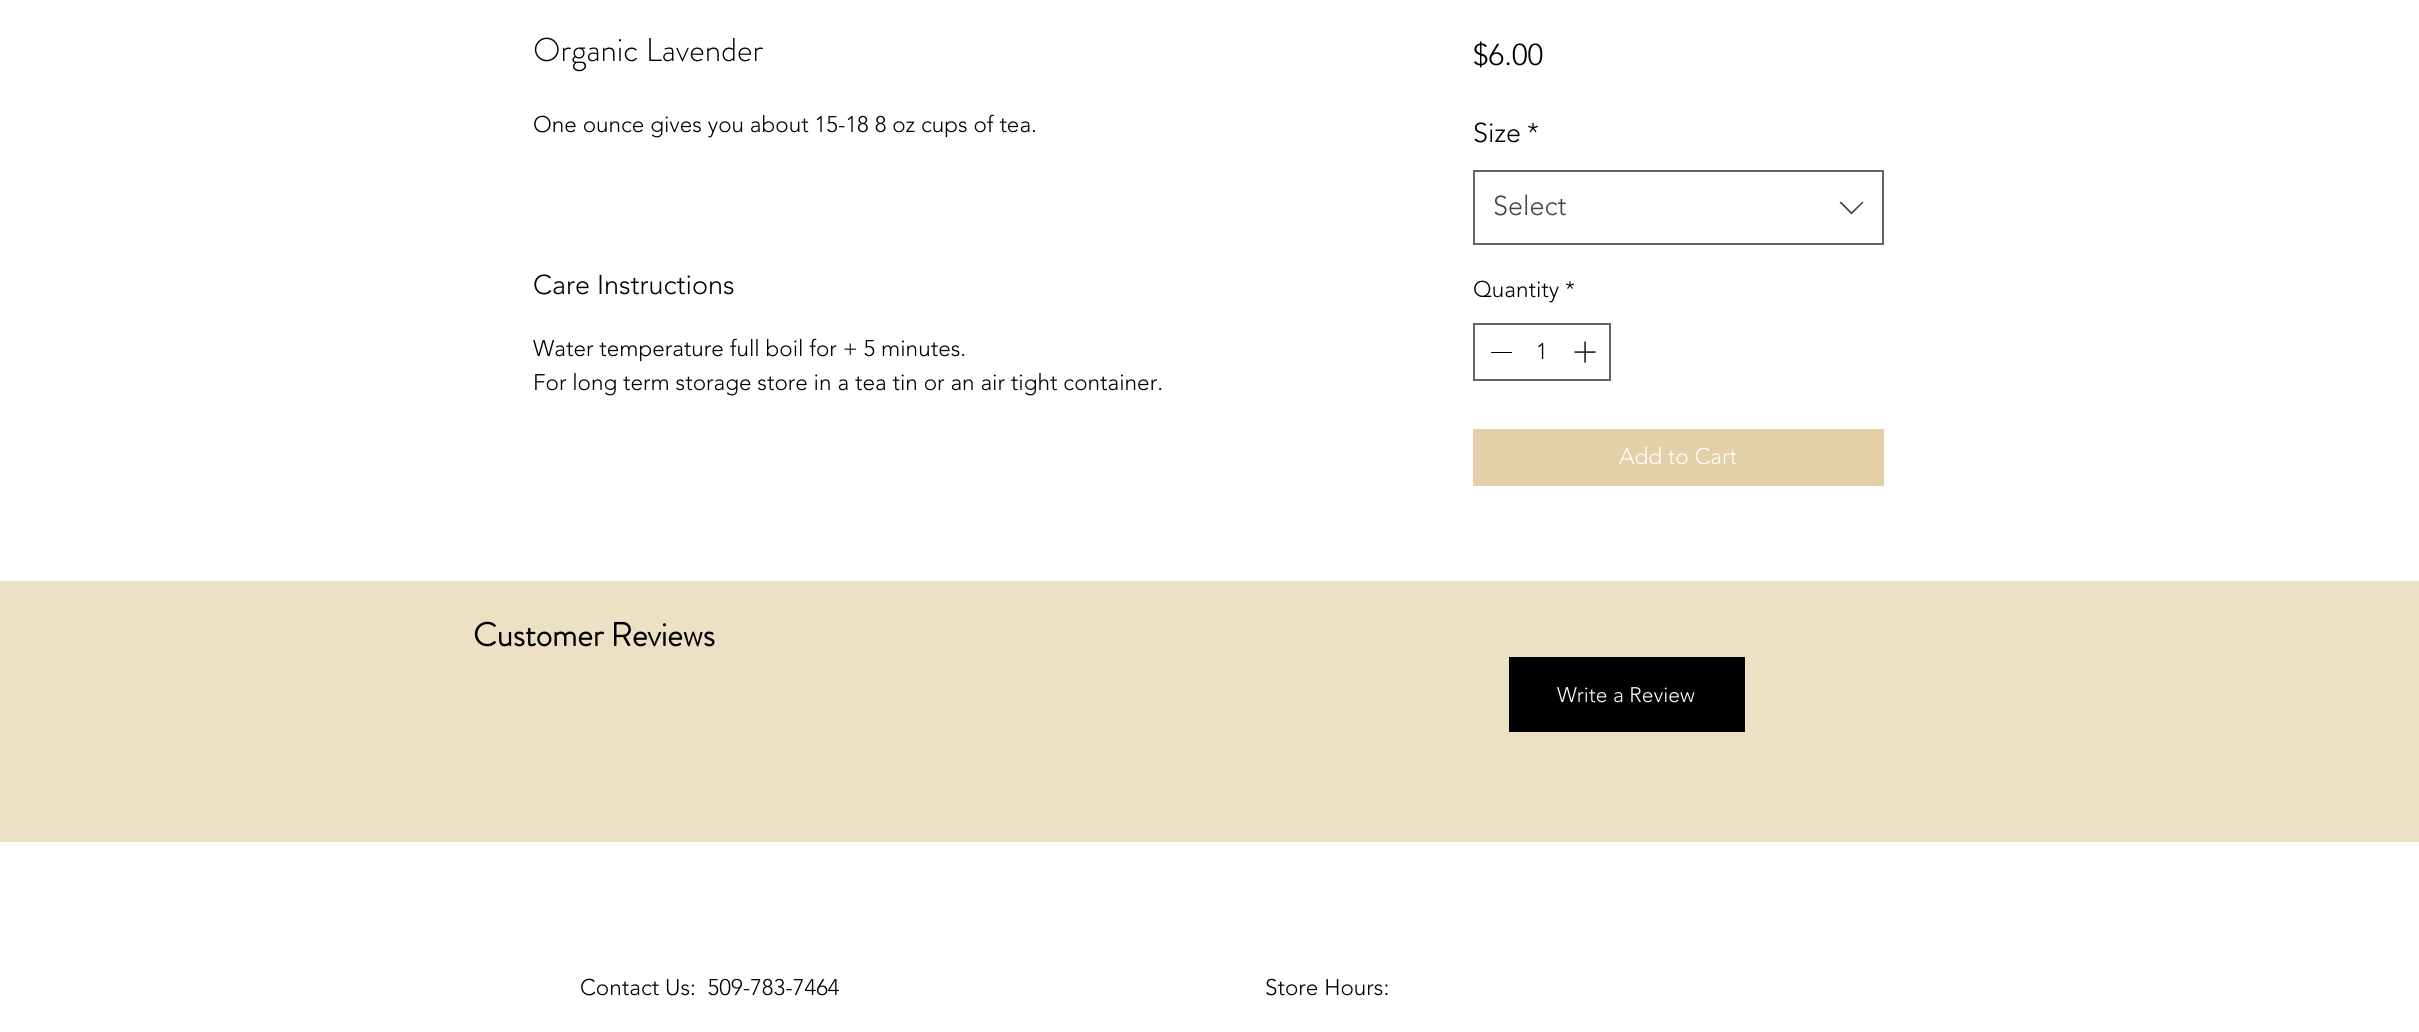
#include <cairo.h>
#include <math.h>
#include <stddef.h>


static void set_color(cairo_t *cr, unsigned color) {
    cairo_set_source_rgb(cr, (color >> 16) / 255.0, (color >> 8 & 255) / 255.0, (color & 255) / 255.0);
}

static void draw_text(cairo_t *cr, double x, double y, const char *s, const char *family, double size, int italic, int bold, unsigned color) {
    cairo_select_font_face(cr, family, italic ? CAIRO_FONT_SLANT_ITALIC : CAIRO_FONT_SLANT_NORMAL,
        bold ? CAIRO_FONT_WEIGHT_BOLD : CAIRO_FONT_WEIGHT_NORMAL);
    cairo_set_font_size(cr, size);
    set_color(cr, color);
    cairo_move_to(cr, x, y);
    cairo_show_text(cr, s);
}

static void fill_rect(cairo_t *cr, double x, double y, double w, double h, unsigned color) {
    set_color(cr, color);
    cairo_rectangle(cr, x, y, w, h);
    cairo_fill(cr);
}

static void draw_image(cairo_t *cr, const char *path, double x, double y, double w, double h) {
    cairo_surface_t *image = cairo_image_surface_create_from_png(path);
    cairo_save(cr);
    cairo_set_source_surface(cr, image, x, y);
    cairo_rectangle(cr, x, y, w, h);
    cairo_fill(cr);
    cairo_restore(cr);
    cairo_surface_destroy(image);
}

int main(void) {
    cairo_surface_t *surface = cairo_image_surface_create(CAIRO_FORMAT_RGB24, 2419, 1032);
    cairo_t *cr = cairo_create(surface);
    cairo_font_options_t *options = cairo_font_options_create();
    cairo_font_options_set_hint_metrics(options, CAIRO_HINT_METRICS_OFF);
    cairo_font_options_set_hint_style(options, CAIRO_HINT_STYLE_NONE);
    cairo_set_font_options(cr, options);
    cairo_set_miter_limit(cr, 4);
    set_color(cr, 0xFFFFFF);
    cairo_paint(cr);
    draw_text(cr, 533, 61, "Organic Lavender", "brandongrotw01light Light", 33, 0, 0, 0x000000);
    draw_text(cr, 533, 132, "One ounce gives you about 15-18 8 oz cups of tea.", "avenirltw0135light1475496 Light", 22.5, 0, 0, 0x000000);
    draw_text(cr, 533, 294, "Care Instructions", "avenirltw0135light1475496 Light", 27, 0, 0, 0x000000);
    draw_text(cr, 533, 356, "Water temperature full boil for + 5 minutes.", "avenirltw0135light1475496 Light", 22.5, 0, 0, 0x000000);
    draw_text(cr, 533, 390, "For long term storage store in a tea tin or an air tight container.", "avenirltw0135light1475496 Light", 22.5, 0, 0, 0x000000);
    draw_text(cr, 1473, 65, "$6.00", "avenirltw0135light1475496 Light", 30, 0, 0, 0x000000);
    draw_text(cr, 1473, 142, "Size", "avenirltw0135light1475496 Light", 27, 0, 0, 0x000000);
    draw_text(cr, 1527, 142, "*", "avenirltw0135light1475496 Light", 27, 0, 0, 0x000000);
    cairo_rectangle(cr, 1474, 171, 409, 73);
    set_color(cr, 0x666666);
    cairo_stroke(cr);
    draw_text(cr, 1493, 215, "Select", "avenirltw0135light1475496 Light", 27, 0, 0, 0x444444);
    cairo_set_fill_rule(cr, CAIRO_FILL_RULE_EVEN_ODD);
    cairo_new_path(cr);
    cairo_move_to(cr, 1862.5, 201.5);
    cairo_line_to(cr, 1863.5, 202.5);
    cairo_line_to(cr, 1851.5, 214.5);
    cairo_line_to(cr, 1839.5, 202.5);
    cairo_line_to(cr, 1841, 201.5);
    cairo_line_to(cr, 1851.5, 212);
    cairo_close_path(cr);
    cairo_fill(cr);
    draw_text(cr, 1473, 297, "Quantity *", "avenirltw0135light1475496 Light", 22.5, 0, 0, 0x000000);
    cairo_rectangle(cr, 1474, 324, 136, 56);
    set_color(cr, 0x666666);
    cairo_stroke(cr);
    fill_rect(cr, 1491, 352, 21, 1, 0x000000);
    draw_text(cr, 1536, 359, "1", "avenirltw0135light1475496 Light", 22.5, 0, 0, 0x000000);
    draw_image(cr, "assets/img1.png", 1574, 341, 22, 22);
    fill_rect(cr, 1473, 429, 411, 57, 0xE3D0A8);
    draw_text(cr, 1619, 464, "Add to Cart", "avenirltw0135light1475496 Light", 22.5, 0, 0, 0xFFFFFF);
    fill_rect(cr, 0, 581, 2419, 261, 0xECE0C5);
    draw_text(cr, 473, 646, "Customer Reviews", "brandongrotw01light", 33, 0, 1, 0x000000);
    fill_rect(cr, 1509, 657, 236, 75, 0x000000);
    draw_text(cr, 1557, 702, "Write a Review", "avenirltw0135light1475496 Light", 21, 0, 0, 0xFFFFFF);
    draw_text(cr, 580, 995, "Contact Us:  509-783-7464", "avenirltw0135light1475496 Light", 22.5, 0, 0, 0x000000);
    draw_text(cr, 1265, 995, "Store Hours:", "avenirltw0135light1475496 Light", 22.5, 0, 0, 0x000000);
    cairo_surface_write_to_png(surface, "output.png");
    cairo_font_options_destroy(options);
    cairo_destroy(cr);
    cairo_surface_destroy(surface);
    return 0;
}
